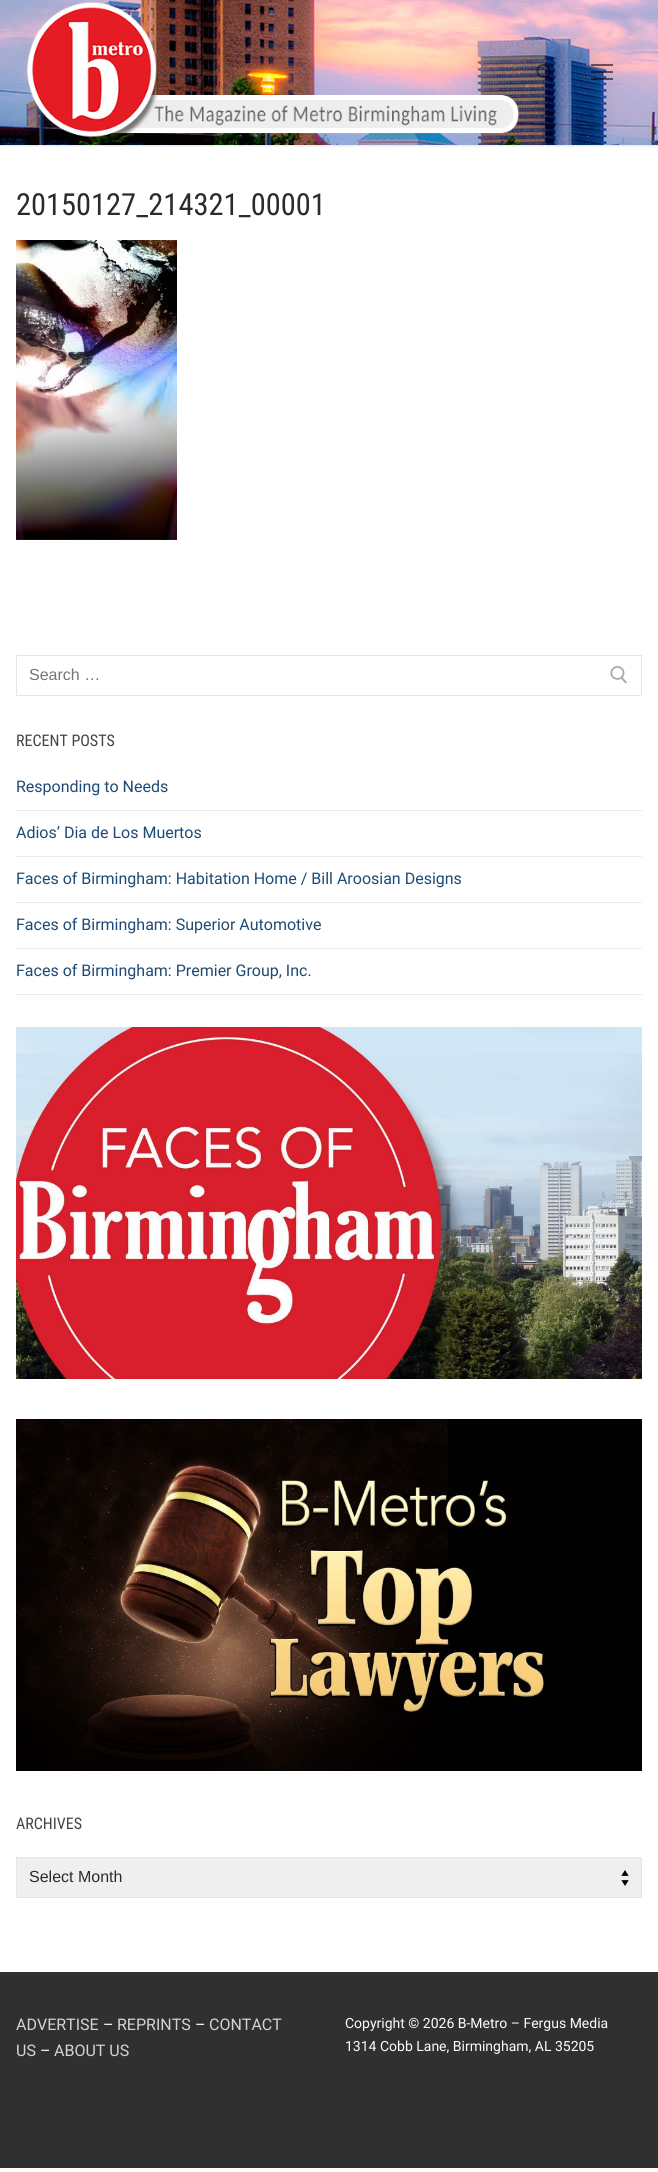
#include <cairo.h>
#include <math.h>
#include <stddef.h>


static void set_color(cairo_t *cr, unsigned color) {
    cairo_set_source_rgb(cr, (color >> 16) / 255.0, (color >> 8 & 255) / 255.0, (color & 255) / 255.0);
}

static void draw_text(cairo_t *cr, double x, double y, const char *s, const char *family, double size, int italic, int bold, unsigned color) {
    cairo_select_font_face(cr, family, italic ? CAIRO_FONT_SLANT_ITALIC : CAIRO_FONT_SLANT_NORMAL,
        bold ? CAIRO_FONT_WEIGHT_BOLD : CAIRO_FONT_WEIGHT_NORMAL);
    cairo_set_font_size(cr, size);
    set_color(cr, color);
    cairo_move_to(cr, x, y);
    cairo_show_text(cr, s);
}

static void fill_rect(cairo_t *cr, double x, double y, double w, double h, unsigned color) {
    set_color(cr, color);
    cairo_rectangle(cr, x, y, w, h);
    cairo_fill(cr);
}

static void rounded_rect(cairo_t *cr, double x, double y, double w, double h, double r) {
    cairo_new_sub_path(cr);
    cairo_arc(cr, x + w - r, y + h - r, r, 0, M_PI / 2);
    cairo_arc(cr, x + r, y + h - r, r, M_PI / 2, M_PI);
    cairo_arc(cr, x + r, y + r, r, M_PI, 1.5 * M_PI);
    cairo_arc(cr, x + w - r, y + r, r, 1.5 * M_PI, 2 * M_PI);
    cairo_close_path(cr);
}

static void draw_shadow(cairo_t *cr, double x, double y, double w, double h, double r, double blur, double alpha) {
    cairo_push_group_with_content(cr, CAIRO_CONTENT_ALPHA);
    cairo_set_operator(cr, CAIRO_OPERATOR_SOURCE);
    for (int i = 15; i >= -15 && fmin(w, h) + blur * i / 3 > 0; i -= 2) {
        double e = blur * i / 6;
        cairo_set_source_rgba(cr, 0, 0, 0, alpha * erfc((i - 1) / 8.5) / 2);
        rounded_rect(cr, x - e, y - e, w + 2 * e, h + 2 * e, fmax(0, fmin(r + e + blur * .6, fmin(w, h) / 2 + e)));
        cairo_fill(cr);
    }
    cairo_pattern_t *soft = cairo_pop_group(cr);
    cairo_mask(cr, soft);
    cairo_pattern_destroy(soft);
}

static void draw_image(cairo_t *cr, const char *path, double x, double y, double w, double h) {
    cairo_surface_t *image = cairo_image_surface_create_from_png(path);
    cairo_save(cr);
    cairo_set_source_surface(cr, image, x, y);
    cairo_rectangle(cr, x, y, w, h);
    cairo_fill(cr);
    cairo_restore(cr);
    cairo_surface_destroy(image);
}

int main(void) {
    cairo_surface_t *surface = cairo_image_surface_create(CAIRO_FORMAT_RGB24, 658, 2172);
    cairo_t *cr = cairo_create(surface);
    cairo_font_options_t *options = cairo_font_options_create();
    cairo_font_options_set_hint_metrics(options, CAIRO_HINT_METRICS_OFF);
    cairo_font_options_set_hint_style(options, CAIRO_HINT_STYLE_NONE);
    cairo_set_font_options(cr, options);
    cairo_set_miter_limit(cr, 4);
    set_color(cr, 0xFFFFFF);
    cairo_paint(cr);
    set_color(cr, 0xE1E5EA);
    draw_shadow(cr, 0, 1, 658, 145, 0, 1, 1);
    draw_image(cr, "assets/img1.png", 0, 0, 658, 145);
    draw_image(cr, "assets/img2.png", 27, 2, 492, 141);
    draw_image(cr, "assets/img3.png", 536, 64, 17, 18);
    cairo_set_source_rgba(cr, 0, 0, 0, 0.55);
    cairo_rectangle(cr, 591, 71, 22, 2);
    cairo_fill(cr);
    cairo_rectangle(cr, 591, 64, 22, 2);
    cairo_fill(cr);
    cairo_rectangle(cr, 591, 78, 22, 2);
    cairo_fill(cr);
    draw_text(cr, 16, 215, "20150127_214321_00001", "Roboto Condensed", 30.4, 0, 0, 0x2B2B2B);
    draw_image(cr, "assets/img4.png", 16, 240, 161, 300);
    rounded_rect(cr, 16.5, 655.5, 625, 40, 0.5);
    set_color(cr, 0xE5E5E5);
    cairo_set_line_width(cr, 1);
    cairo_stroke(cr);
    draw_text(cr, 29, 680, "Search …", "Liberation Sans", 16, 0, 0, 0x757575);
    draw_image(cr, "assets/img5.png", 610, 666, 17, 18);
    draw_text(cr, 16, 746, "RECENT POSTS", "Roboto Condensed", 16, 0, 0, 0x444444);
    fill_rect(cr, 16, 810, 626, 1, 0xEAECEE);
    draw_text(cr, 16, 792, "Responding to Needs", "Roboto", 16, 0, 0, 0x1E4B75);
    fill_rect(cr, 16, 856, 626, 1, 0xEAECEE);
    draw_text(cr, 16, 838, "Adios’ Dia de Los Muertos", "Roboto", 16, 0, 0, 0x1E4B75);
    fill_rect(cr, 16, 902, 626, 1, 0xEAECEE);
    draw_text(cr, 16, 884, "Faces of Birmingham: Habitation Home / Bill Aroosian Designs", "Roboto", 16, 0, 0, 0x1E4B75);
    fill_rect(cr, 16, 948, 626, 1, 0xEAECEE);
    draw_text(cr, 16, 930, "Faces of Birmingham: Superior Automotive", "Roboto", 16, 0, 0, 0x1E4B75);
    fill_rect(cr, 16, 994, 626, 1, 0xEAECEE);
    draw_text(cr, 16, 976, "Faces of Birmingham: Premier Group, Inc.", "Roboto", 16, 0, 0, 0x1E4B75);
    draw_image(cr, "assets/img6.png", 16, 1027, 626, 352);
    draw_image(cr, "assets/img7.png", 16, 1419, 626, 352);
    draw_text(cr, 16, 1829, "ARCHIVES", "Roboto Condensed", 16, 0, 0, 0x444444);
    set_color(cr, 0xEFEFEF);
    rounded_rect(cr, 16, 1857, 626, 41, 1);
    cairo_fill(cr);
    draw_image(cr, "assets/img8.png", 621, 1870, 8, 16);
    rounded_rect(cr, 16.5, 1857.5, 625, 40, 0.5);
    set_color(cr, 0xE5E5E5);
    cairo_stroke(cr);
    draw_text(cr, 29, 1882, "Select Month", "Liberation Sans", 16, 0, 0, 0x2B2B2B);
    fill_rect(cr, 0, 1972, 658, 196, 0x303030);
    draw_text(cr, 16, 2030, "ADVERTISE", "Roboto", 16, 0, 0, 0xD4D4D4);
    draw_text(cr, 103, 2030, "–", "Roboto", 16, 0, 0, 0xFDFDFD);
    draw_text(cr, 117, 2030, "REPRINTS", "Roboto", 16, 0, 0, 0xD4D4D4);
    draw_text(cr, 195, 2030, "–", "Roboto", 16, 0, 0, 0xFDFDFD);
    draw_text(cr, 209, 2030, "CONTACT", "Roboto", 16, 0, 0, 0xD4D4D4);
    draw_text(cr, 16, 2056, "US", "Roboto", 16, 0, 0, 0xD4D4D4);
    draw_text(cr, 40, 2056, "–", "Roboto", 16, 0, 0, 0xFDFDFD);
    draw_text(cr, 54, 2056, "ABOUT US", "Roboto", 16, 0, 0, 0xD4D4D4);
    draw_text(cr, 345, 2028, "Copyright © 2026 B-Metro – Fergus Media", "Roboto", 14, 0, 0, 0xFDFDFD);
    draw_text(cr, 345, 2051, "1314 Cobb Lane, Birmingham, AL 35205", "Roboto", 14, 0, 0, 0xFDFDFD);
    cairo_surface_write_to_png(surface, "output.png");
    cairo_font_options_destroy(options);
    cairo_destroy(cr);
    cairo_surface_destroy(surface);
    return 0;
}
